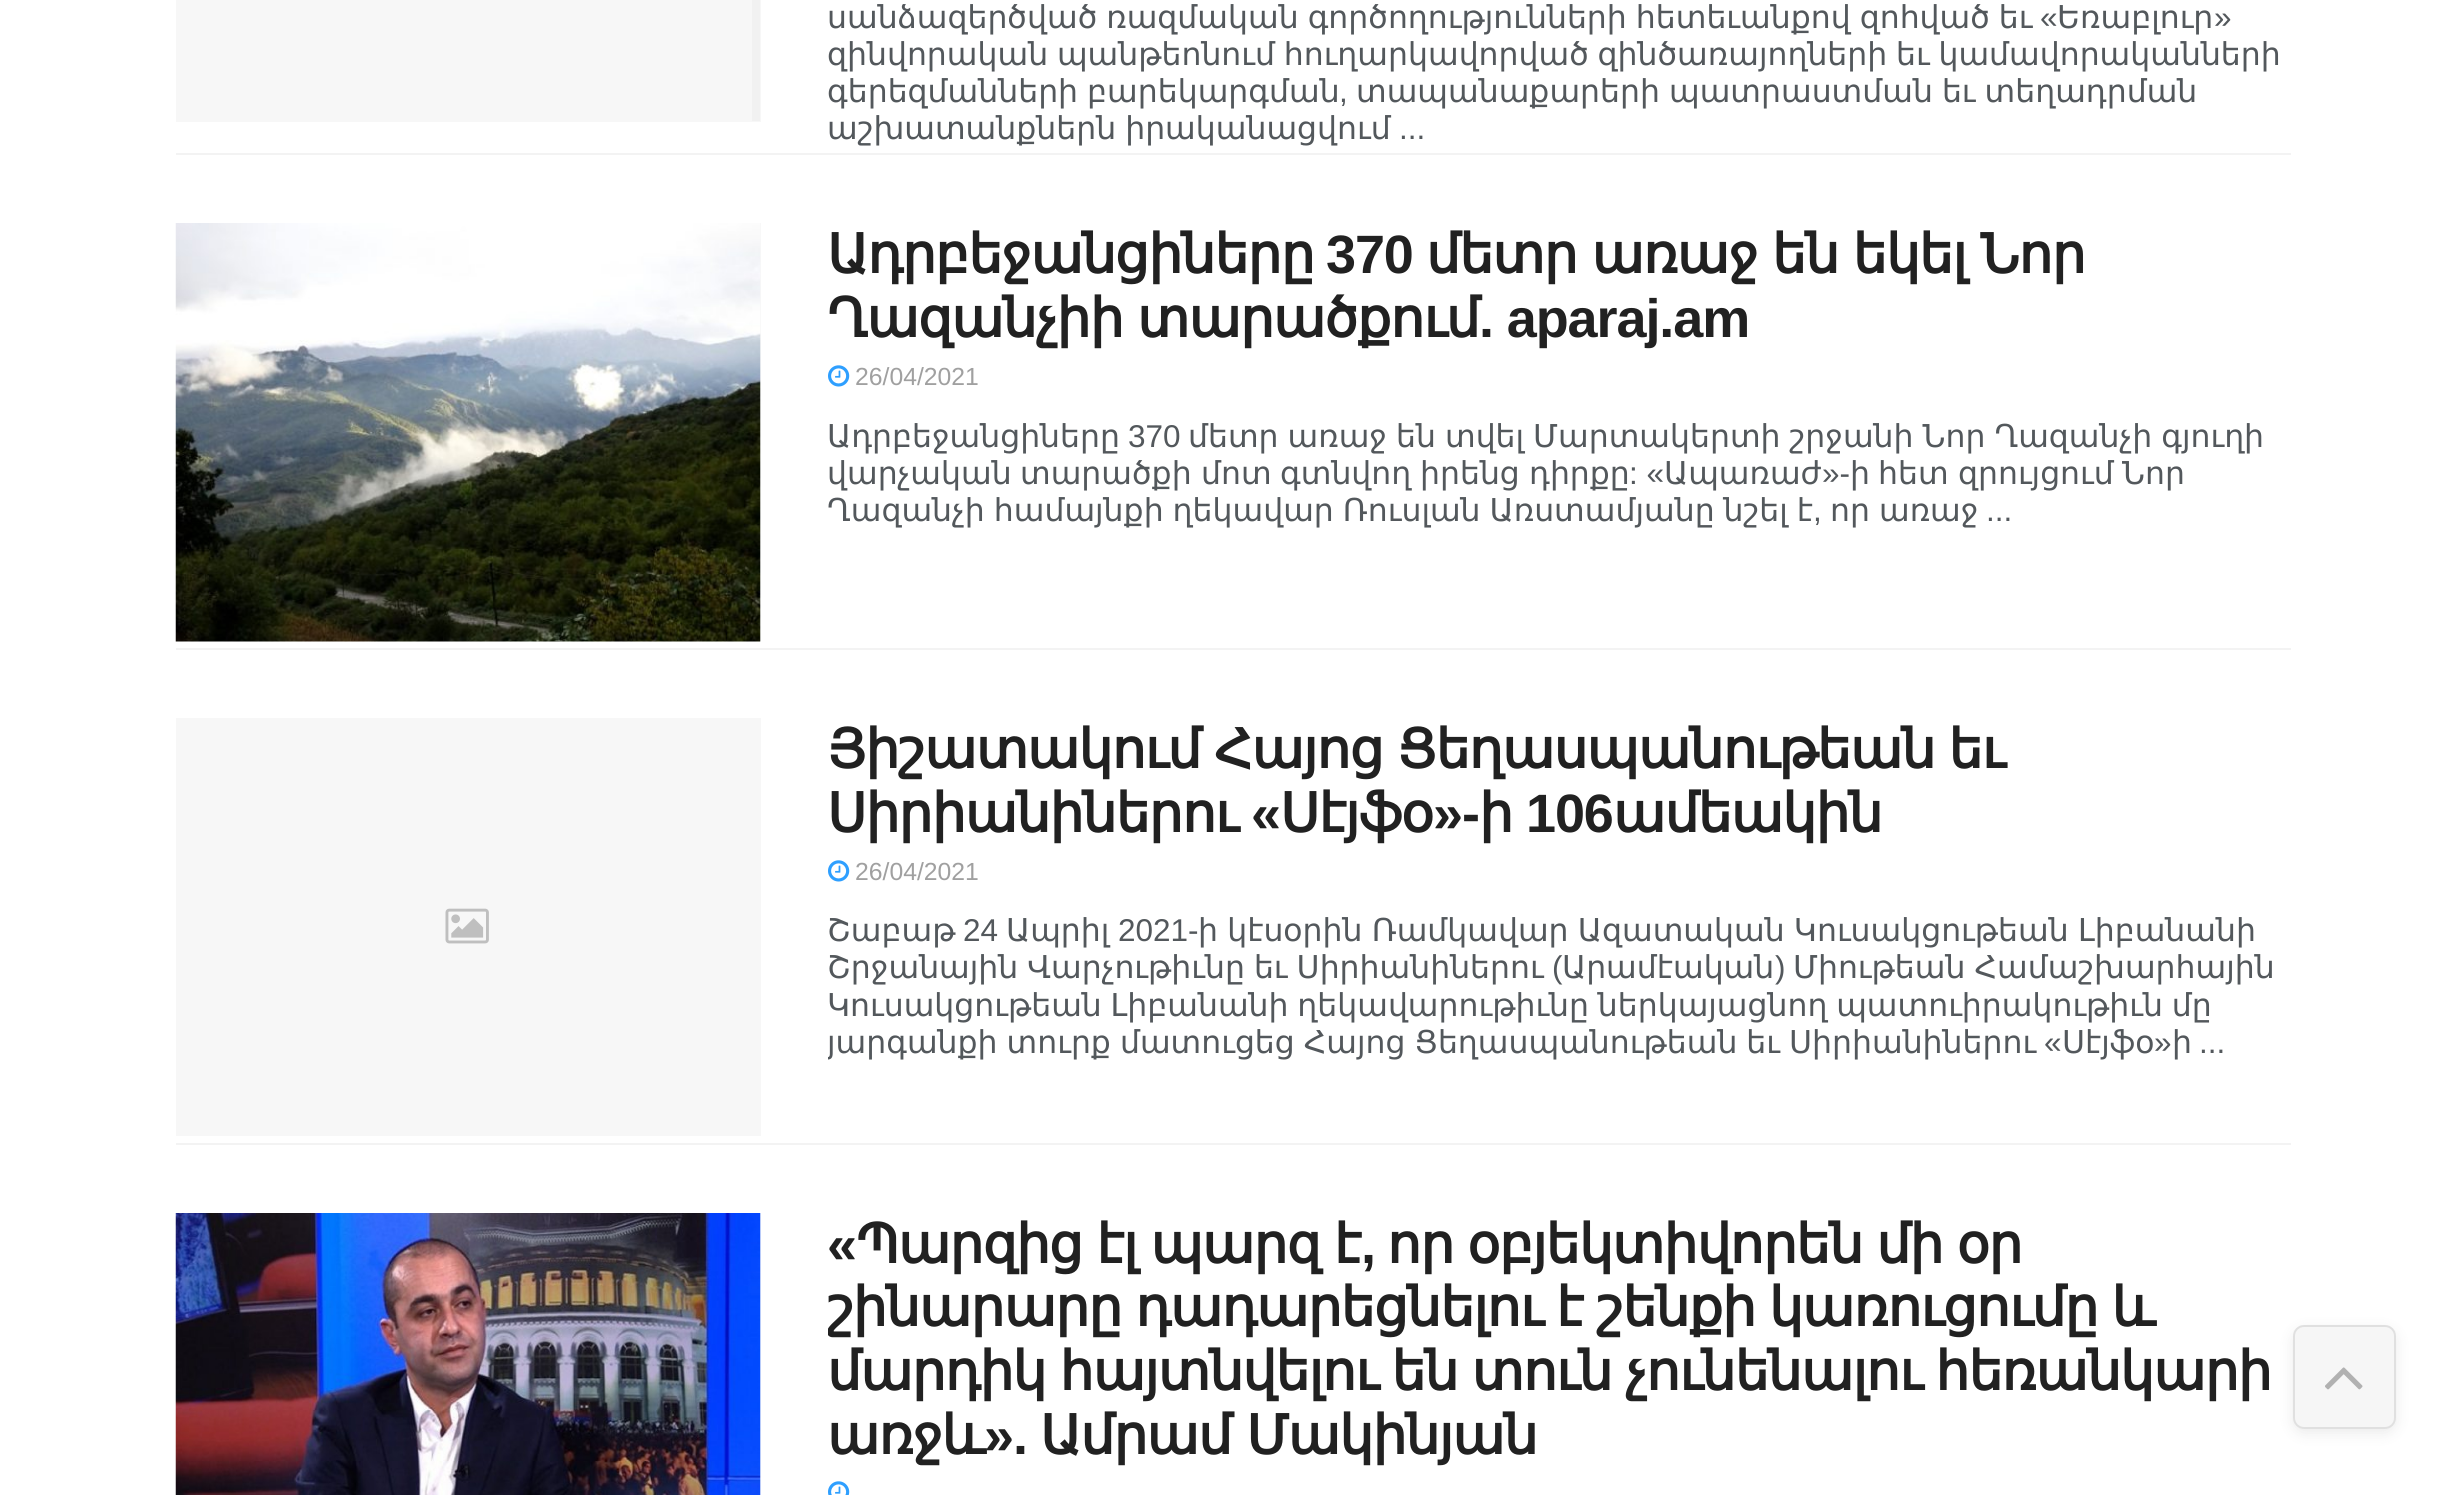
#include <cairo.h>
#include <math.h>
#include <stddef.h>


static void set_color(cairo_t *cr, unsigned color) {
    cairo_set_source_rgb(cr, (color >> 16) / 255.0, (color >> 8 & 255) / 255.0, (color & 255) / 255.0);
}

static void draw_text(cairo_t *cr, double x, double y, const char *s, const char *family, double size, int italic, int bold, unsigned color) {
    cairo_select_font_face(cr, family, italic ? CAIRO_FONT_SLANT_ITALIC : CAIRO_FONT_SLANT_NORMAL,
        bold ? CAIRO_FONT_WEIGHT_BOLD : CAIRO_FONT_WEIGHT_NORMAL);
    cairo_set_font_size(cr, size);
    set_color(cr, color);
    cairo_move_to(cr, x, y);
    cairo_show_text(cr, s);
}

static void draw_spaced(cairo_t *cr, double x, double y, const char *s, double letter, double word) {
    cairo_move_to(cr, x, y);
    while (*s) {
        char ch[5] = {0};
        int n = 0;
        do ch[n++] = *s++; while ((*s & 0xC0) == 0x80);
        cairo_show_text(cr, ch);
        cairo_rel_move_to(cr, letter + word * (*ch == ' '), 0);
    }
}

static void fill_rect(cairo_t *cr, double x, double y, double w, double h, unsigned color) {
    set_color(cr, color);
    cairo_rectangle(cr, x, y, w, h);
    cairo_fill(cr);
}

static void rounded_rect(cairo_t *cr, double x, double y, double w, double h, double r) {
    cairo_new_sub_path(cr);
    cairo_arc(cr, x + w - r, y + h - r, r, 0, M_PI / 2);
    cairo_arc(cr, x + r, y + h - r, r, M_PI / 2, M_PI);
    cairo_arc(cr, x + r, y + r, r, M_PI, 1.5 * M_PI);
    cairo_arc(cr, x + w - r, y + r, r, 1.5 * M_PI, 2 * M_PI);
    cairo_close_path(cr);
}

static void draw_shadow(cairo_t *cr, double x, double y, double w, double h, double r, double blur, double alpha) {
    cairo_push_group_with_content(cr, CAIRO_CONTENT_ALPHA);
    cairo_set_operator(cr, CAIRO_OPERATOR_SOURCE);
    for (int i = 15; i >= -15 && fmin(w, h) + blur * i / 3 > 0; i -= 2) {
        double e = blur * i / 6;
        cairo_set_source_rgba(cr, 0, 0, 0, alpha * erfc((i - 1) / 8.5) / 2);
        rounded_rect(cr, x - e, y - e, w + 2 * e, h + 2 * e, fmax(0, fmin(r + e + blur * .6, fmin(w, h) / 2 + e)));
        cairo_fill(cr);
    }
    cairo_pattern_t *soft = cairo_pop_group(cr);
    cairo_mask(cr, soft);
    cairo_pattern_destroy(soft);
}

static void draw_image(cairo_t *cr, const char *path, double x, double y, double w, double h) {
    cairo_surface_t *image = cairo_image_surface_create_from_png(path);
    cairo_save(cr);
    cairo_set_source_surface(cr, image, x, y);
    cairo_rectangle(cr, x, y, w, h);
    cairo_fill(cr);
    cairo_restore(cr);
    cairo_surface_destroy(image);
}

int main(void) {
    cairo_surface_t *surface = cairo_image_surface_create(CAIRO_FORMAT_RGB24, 2463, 1495);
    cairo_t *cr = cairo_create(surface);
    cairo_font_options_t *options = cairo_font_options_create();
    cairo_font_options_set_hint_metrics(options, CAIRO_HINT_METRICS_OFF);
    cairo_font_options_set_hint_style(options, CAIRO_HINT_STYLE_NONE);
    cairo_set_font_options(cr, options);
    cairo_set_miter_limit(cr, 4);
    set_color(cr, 0xFFFFFF);
    cairo_paint(cr);
    fill_rect(cr, 176, 153, 2115, 2, 0xF3F3F3);
    fill_rect(cr, 176, 0, 585, 122, 0xF7F7F7);
    fill_rect(cr, 752, 0, 8, 121, 0xF1F1F1);
    cairo_select_font_face(cr, "DejaVu Sans", CAIRO_FONT_SLANT_NORMAL, CAIRO_FONT_WEIGHT_NORMAL);
    cairo_set_font_size(cr, 31.5);
    set_color(cr, 0x53585C);
    draw_spaced(cr, 827, 28, "սանձազերծված ռազմական գործողությունների հետեւանքով զոհված եւ", 0, -1);
    draw_text(cr, 2040, 28, "«", "Liberation Sans", 31.5, 0, 0, 0x53585C);
    draw_text(cr, 2057, 28, "Եռաբլուր", "DejaVu Sans", 31.5, 0, 0, 0x53585C);
    draw_text(cr, 2214, 28, "»", "Liberation Sans", 31.5, 0, 0, 0x53585C);
    cairo_select_font_face(cr, "DejaVu Sans", CAIRO_FONT_SLANT_NORMAL, CAIRO_FONT_WEIGHT_NORMAL);
    draw_spaced(cr, 827, 65, "զինվորական պանթեոնում հուղարկավորված զինծառայողների եւ կամավորականների", 0, -1.25);
    draw_spaced(cr, 827, 102, "գերեզմանների բարեկարգման", 0, -1);
    draw_text(cr, 1339, 102, ",", "Liberation Sans", 31.5, 0, 0, 0x53585C);
    cairo_select_font_face(cr, "DejaVu Sans", CAIRO_FONT_SLANT_NORMAL, CAIRO_FONT_WEIGHT_NORMAL);
    draw_spaced(cr, 1356, 102, "տապանաքարերի պատրաստման եւ տեղադրման", 0, -1);
    draw_spaced(cr, 827, 139, "աշխատանքներն իրականացվում", 0, -1);
    draw_text(cr, 1399, 139, "...", "Liberation Sans", 31.5, 0, 0, 0x53585C);
    fill_rect(cr, 176, 648, 2115, 2, 0xF3F3F3);
    fill_rect(cr, 760, 223, 1, 418, 0xF7F7F7);
    draw_image(cr, "assets/img1.png", 175, 223, 586, 419);
    cairo_select_font_face(cr, "DejaVu Sans", CAIRO_FONT_SLANT_NORMAL, CAIRO_FONT_WEIGHT_BOLD);
    cairo_set_font_size(cr, 54);
    set_color(cr, 0x212121);
    draw_spaced(cr, 827, 273, "Ադրբեջանցիները", -1.1, 0);
    cairo_select_font_face(cr, "Liberation Sans", CAIRO_FONT_SLANT_NORMAL, CAIRO_FONT_WEIGHT_BOLD);
    draw_spaced(cr, 1326, 273, "370", -1.1, 0);
    cairo_select_font_face(cr, "DejaVu Sans", CAIRO_FONT_SLANT_NORMAL, CAIRO_FONT_WEIGHT_BOLD);
    draw_spaced(cr, 1426, 273, "մետր առաջ են եկել Նոր", -1.1, -1.5);
    draw_spaced(cr, 827, 337, "Ղազանչիի", -1.1, 0);
    draw_spaced(cr, 1137, 337, "տարածքում", -1.1, 0);
    cairo_select_font_face(cr, "Liberation Sans", CAIRO_FONT_SLANT_NORMAL, CAIRO_FONT_WEIGHT_BOLD);
    draw_spaced(cr, 1479, 337, ". aparaj.am", -1.1, 0);
    draw_image(cr, "assets/img2.png", 828, 365, 22, 22);
    draw_text(cr, 855, 385, "26/04/2021", "Liberation Sans", 24.75, 0, 0, 0xA0A0A0);
    draw_text(cr, 827, 447, "Ադրբեջանցիները", "DejaVu Sans", 31.5, 0, 0, 0x53585C);
    draw_text(cr, 1128, 447, "370", "Liberation Sans", 31.5, 0, 0, 0x53585C);
    cairo_select_font_face(cr, "DejaVu Sans", CAIRO_FONT_SLANT_NORMAL, CAIRO_FONT_WEIGHT_NORMAL);
    draw_spaced(cr, 1188, 447, "մետր առաջ են տվել Մարտակերտի շրջանի Նոր Ղազանչի գյուղի", 0, -1);
    draw_text(cr, 827, 484, "վարչական", "DejaVu Sans", 31.5, 0, 0, 0x53585C);
    draw_text(cr, 1020, 484, "տարածքի", "DejaVu Sans", 31.5, 0, 0, 0x53585C);
    draw_text(cr, 1201, 484, "մոտ", "DejaVu Sans", 31.5, 0, 0, 0x53585C);
    draw_text(cr, 1280, 484, "գտնվող", "DejaVu Sans", 31.5, 0, 0, 0x53585C);
    draw_text(cr, 1420, 484, "իրենց", "DejaVu Sans", 31.5, 0, 0, 0x53585C);
    draw_text(cr, 1529, 484, "դիրքը", "DejaVu Sans", 31.5, 0, 0, 0x53585C);
    draw_text(cr, 1629, 484, ": «", "Liberation Sans", 31.5, 0, 0, 0x53585C);
    draw_text(cr, 1664, 484, "Ապառաժ", "DejaVu Sans", 31.5, 0, 0, 0x53585C);
    draw_text(cr, 1822, 484, "»-", "Liberation Sans", 31.5, 0, 0, 0x53585C);
    draw_text(cr, 1850, 484, "ի", "DejaVu Sans", 31.5, 0, 0, 0x53585C);
    draw_text(cr, 1878, 484, "հետ", "DejaVu Sans", 31.5, 0, 0, 0x53585C);
    draw_text(cr, 1958, 484, "զրույցում", "DejaVu Sans", 31.5, 0, 0, 0x53585C);
    draw_text(cr, 2122, 484, "Նոր", "DejaVu Sans", 31.5, 0, 0, 0x53585C);
    draw_spaced(cr, 827, 521, "Ղազանչի համայնքի ղեկավար Ռուսլան Առստամյանը նշել է", 0, -1);
    draw_text(cr, 1813, 521, ",", "Liberation Sans", 31.5, 0, 0, 0x53585C);
    cairo_select_font_face(cr, "DejaVu Sans", CAIRO_FONT_SLANT_NORMAL, CAIRO_FONT_WEIGHT_NORMAL);
    draw_spaced(cr, 1830, 521, "որ առաջ", 0, -1);
    draw_text(cr, 1986, 521, "...", "Liberation Sans", 31.5, 0, 0, 0x53585C);
    fill_rect(cr, 176, 1143, 2115, 2, 0xF3F3F3);
    fill_rect(cr, 176, 718, 585, 418, 0xF7F7F7);
    draw_image(cr, "assets/img3.png", 445, 908, 44, 36);
    cairo_select_font_face(cr, "DejaVu Sans", CAIRO_FONT_SLANT_NORMAL, CAIRO_FONT_WEIGHT_BOLD);
    cairo_set_font_size(cr, 54);
    set_color(cr, 0x212121);
    draw_spaced(cr, 827, 768, "Յիշատակում", -1.1, 0);
    draw_spaced(cr, 1214, 768, "Հայոց Ցեղասպանութեան եւ", -1.1, -2.25);
    draw_spaced(cr, 827, 832, "Սիրիանիներու", -1.1, 0);
    cairo_select_font_face(cr, "Liberation Sans", CAIRO_FONT_SLANT_NORMAL, CAIRO_FONT_WEIGHT_BOLD);
    draw_spaced(cr, 1251, 832, "«", -1.1, 0);
    cairo_select_font_face(cr, "DejaVu Sans", CAIRO_FONT_SLANT_NORMAL, CAIRO_FONT_WEIGHT_BOLD);
    draw_spaced(cr, 1280, 832, "Սէյֆօ", -1.1, 0);
    cairo_select_font_face(cr, "Liberation Sans", CAIRO_FONT_SLANT_NORMAL, CAIRO_FONT_WEIGHT_BOLD);
    draw_spaced(cr, 1433, 832, "»-", -1.1, 0);
    cairo_select_font_face(cr, "DejaVu Sans", CAIRO_FONT_SLANT_NORMAL, CAIRO_FONT_WEIGHT_BOLD);
    draw_spaced(cr, 1479, 832, "ի", -1.1, 0);
    cairo_select_font_face(cr, "Liberation Sans", CAIRO_FONT_SLANT_NORMAL, CAIRO_FONT_WEIGHT_BOLD);
    draw_spaced(cr, 1526, 832, "106", -1.1, 0);
    cairo_select_font_face(cr, "DejaVu Sans", CAIRO_FONT_SLANT_NORMAL, CAIRO_FONT_WEIGHT_BOLD);
    draw_spaced(cr, 1613, 832, "ամեակին", -1.1, 0);
    draw_image(cr, "assets/img2.png", 828, 860, 22, 22);
    draw_text(cr, 855, 880, "26/04/2021", "Liberation Sans", 24.75, 0, 0, 0xA0A0A0);
    draw_text(cr, 827, 941, "Շաբաթ", "DejaVu Sans", 31.5, 0, 0, 0x53585C);
    draw_text(cr, 963, 941, "24", "Liberation Sans", 31.5, 0, 0, 0x53585C);
    draw_text(cr, 1006, 941, "Ապրիլ", "DejaVu Sans", 31.5, 0, 0, 0x53585C);
    draw_text(cr, 1118, 941, "2021-", "Liberation Sans", 31.5, 0, 0, 0x53585C);
    cairo_select_font_face(cr, "DejaVu Sans", CAIRO_FONT_SLANT_NORMAL, CAIRO_FONT_WEIGHT_NORMAL);
    draw_spaced(cr, 1198, 941, "ի կէսօրին Ռամկավար Ազատական Կուսակցութեան Լիբանանի", 0, -0.75);
    draw_spaced(cr, 827, 978, "Շրջանային Վարչութիւնը եւ Սիրիանիներու", 0, -1);
    draw_text(cr, 1552, 978, "(", "Liberation Sans", 31.5, 0, 0, 0x53585C);
    draw_text(cr, 1562, 978, "Արամէական", "DejaVu Sans", 31.5, 0, 0, 0x53585C);
    draw_text(cr, 1775, 978, ")", "Liberation Sans", 31.5, 0, 0, 0x53585C);
    cairo_select_font_face(cr, "DejaVu Sans", CAIRO_FONT_SLANT_NORMAL, CAIRO_FONT_WEIGHT_NORMAL);
    draw_spaced(cr, 1793, 978, "Միութեան Համաշխարհային", 0, -1);
    draw_spaced(cr, 827, 1016, "Կուսակցութեան Լիբանանի ղեկավարութիւնը ներկայացնող պատուիրակութիւն մը", 0, -1.25);
    cairo_save(cr);
    cairo_rectangle(cr, 828, 718, 1463, 342);
    cairo_clip(cr);
    draw_spaced(cr, 827, 1053, "յարգանքի տուրք մատուցեց Հայոց Ցեղասպանութեան եւ Սիրիանիներու", 0, -1);
    cairo_restore(cr);
    draw_text(cr, 2044, 1053, "«", "Liberation Sans", 31.5, 0, 0, 0x53585C);
    draw_text(cr, 2062, 1053, "Սէյֆօ", "DejaVu Sans", 31.5, 0, 0, 0x53585C);
    draw_text(cr, 2154, 1053, "»", "Liberation Sans", 31.5, 0, 0, 0x53585C);
    draw_text(cr, 2172, 1053, "ի", "DejaVu Sans", 31.5, 0, 0, 0x53585C);
    draw_text(cr, 2199, 1053, "...", "Liberation Sans", 31.5, 0, 0, 0x53585C);
    fill_rect(cr, 760, 1213, 1, 282, 0xF7F7F7);
    draw_image(cr, "assets/img4.png", 175, 1213, 586, 282);
    cairo_select_font_face(cr, "Liberation Sans", CAIRO_FONT_SLANT_NORMAL, CAIRO_FONT_WEIGHT_BOLD);
    cairo_set_font_size(cr, 54);
    set_color(cr, 0x212121);
    draw_spaced(cr, 827, 1263, "«", -1.1, 0);
    cairo_select_font_face(cr, "DejaVu Sans", CAIRO_FONT_SLANT_NORMAL, CAIRO_FONT_WEIGHT_BOLD);
    draw_spaced(cr, 856, 1263, "Պարզից էլ պարզ է", -1.1, -2);
    draw_spaced(cr, 1387, 1263, "որ օբյեկտիվորեն մի օր", -1.1, -2);
    cairo_select_font_face(cr, "Liberation Sans", CAIRO_FONT_SLANT_NORMAL, CAIRO_FONT_WEIGHT_BOLD);
    draw_spaced(cr, 1361, 1263, ",", -1.1, 0);
    cairo_save(cr);
    cairo_rectangle(cr, 828, 1213, 1463, 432);
    cairo_clip(cr);
    cairo_select_font_face(cr, "DejaVu Sans", CAIRO_FONT_SLANT_NORMAL, CAIRO_FONT_WEIGHT_BOLD);
    draw_spaced(cr, 827, 1326, "շինարարը դադարեցնելու է շենքի կառուցումը և", -1.1, -2.25);
    cairo_restore(cr);
    cairo_select_font_face(cr, "DejaVu Sans", CAIRO_FONT_SLANT_NORMAL, CAIRO_FONT_WEIGHT_BOLD);
    draw_spaced(cr, 827, 1390, "մարդիկ հայտնվելու են տուն չունենալու հեռանկարի", -1.1, -2.25);
    draw_spaced(cr, 827, 1454, "առջև", -1.1, 0);
    cairo_select_font_face(cr, "Liberation Sans", CAIRO_FONT_SLANT_NORMAL, CAIRO_FONT_WEIGHT_BOLD);
    draw_spaced(cr, 984, 1454, "».", -1.1, 0);
    cairo_select_font_face(cr, "DejaVu Sans", CAIRO_FONT_SLANT_NORMAL, CAIRO_FONT_WEIGHT_BOLD);
    draw_spaced(cr, 1040, 1454, "Ամրամ Մակինյան", -1.1, -1);
    draw_image(cr, "assets/img5.png", 828, 1481, 22, 14);
    cairo_save(cr);
    cairo_set_fill_rule(cr, CAIRO_FILL_RULE_EVEN_ODD);
    cairo_new_path(cr);
    cairo_move_to(cr, 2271, 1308);
    cairo_line_to(cr, 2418, 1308);
    cairo_line_to(cr, 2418, 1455);
    cairo_line_to(cr, 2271, 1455);
    cairo_close_path(cr);
    cairo_move_to(cr, 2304, 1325);
    cairo_line_to(cr, 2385, 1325);
    cairo_curve_to(cr, 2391, 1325, 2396, 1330, 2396, 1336);
    cairo_line_to(cr, 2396, 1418);
    cairo_curve_to(cr, 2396, 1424, 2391, 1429, 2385, 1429);
    cairo_line_to(cr, 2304, 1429);
    cairo_curve_to(cr, 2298, 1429, 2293, 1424, 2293, 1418);
    cairo_line_to(cr, 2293, 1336);
    cairo_curve_to(cr, 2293, 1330, 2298, 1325, 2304, 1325);
    cairo_close_path(cr);
    cairo_clip(cr);
    set_color(cr, 0x333333);
    draw_shadow(cr, 2293, 1330, 103, 103, 11, 7, 0.1);
    cairo_restore(cr);
    cairo_set_source_rgba(cr, 0.769, 0.769, 0.769, 0.15);
    rounded_rect(cr, 2293, 1325, 103, 104, 11);
    cairo_fill(cr);
    rounded_rect(cr, 2294, 1326, 101, 102, 10);
    cairo_set_source_rgba(cr, 0.2, 0.2, 0.2, 0.11);
    cairo_stroke(cr);
    draw_image(cr, "assets/img6.png", 2325, 1367, 38, 23);
    cairo_surface_write_to_png(surface, "output.png");
    cairo_font_options_destroy(options);
    cairo_destroy(cr);
    cairo_surface_destroy(surface);
    return 0;
}
